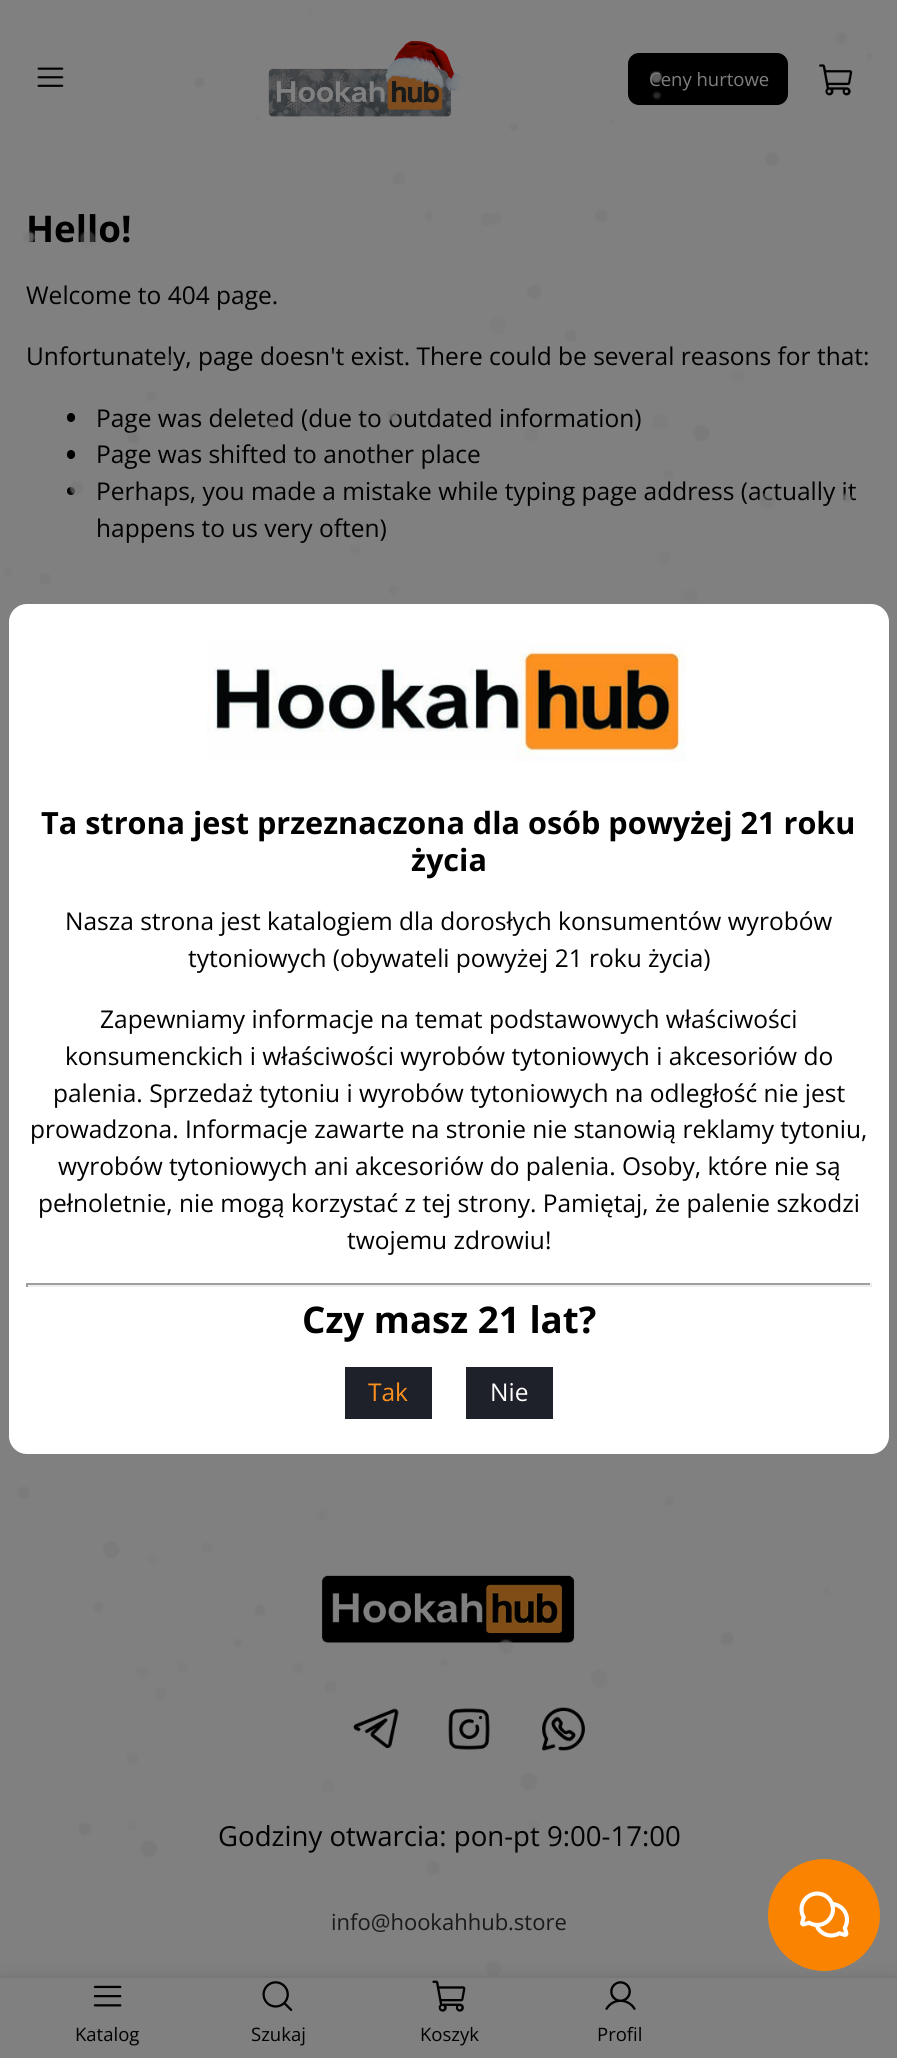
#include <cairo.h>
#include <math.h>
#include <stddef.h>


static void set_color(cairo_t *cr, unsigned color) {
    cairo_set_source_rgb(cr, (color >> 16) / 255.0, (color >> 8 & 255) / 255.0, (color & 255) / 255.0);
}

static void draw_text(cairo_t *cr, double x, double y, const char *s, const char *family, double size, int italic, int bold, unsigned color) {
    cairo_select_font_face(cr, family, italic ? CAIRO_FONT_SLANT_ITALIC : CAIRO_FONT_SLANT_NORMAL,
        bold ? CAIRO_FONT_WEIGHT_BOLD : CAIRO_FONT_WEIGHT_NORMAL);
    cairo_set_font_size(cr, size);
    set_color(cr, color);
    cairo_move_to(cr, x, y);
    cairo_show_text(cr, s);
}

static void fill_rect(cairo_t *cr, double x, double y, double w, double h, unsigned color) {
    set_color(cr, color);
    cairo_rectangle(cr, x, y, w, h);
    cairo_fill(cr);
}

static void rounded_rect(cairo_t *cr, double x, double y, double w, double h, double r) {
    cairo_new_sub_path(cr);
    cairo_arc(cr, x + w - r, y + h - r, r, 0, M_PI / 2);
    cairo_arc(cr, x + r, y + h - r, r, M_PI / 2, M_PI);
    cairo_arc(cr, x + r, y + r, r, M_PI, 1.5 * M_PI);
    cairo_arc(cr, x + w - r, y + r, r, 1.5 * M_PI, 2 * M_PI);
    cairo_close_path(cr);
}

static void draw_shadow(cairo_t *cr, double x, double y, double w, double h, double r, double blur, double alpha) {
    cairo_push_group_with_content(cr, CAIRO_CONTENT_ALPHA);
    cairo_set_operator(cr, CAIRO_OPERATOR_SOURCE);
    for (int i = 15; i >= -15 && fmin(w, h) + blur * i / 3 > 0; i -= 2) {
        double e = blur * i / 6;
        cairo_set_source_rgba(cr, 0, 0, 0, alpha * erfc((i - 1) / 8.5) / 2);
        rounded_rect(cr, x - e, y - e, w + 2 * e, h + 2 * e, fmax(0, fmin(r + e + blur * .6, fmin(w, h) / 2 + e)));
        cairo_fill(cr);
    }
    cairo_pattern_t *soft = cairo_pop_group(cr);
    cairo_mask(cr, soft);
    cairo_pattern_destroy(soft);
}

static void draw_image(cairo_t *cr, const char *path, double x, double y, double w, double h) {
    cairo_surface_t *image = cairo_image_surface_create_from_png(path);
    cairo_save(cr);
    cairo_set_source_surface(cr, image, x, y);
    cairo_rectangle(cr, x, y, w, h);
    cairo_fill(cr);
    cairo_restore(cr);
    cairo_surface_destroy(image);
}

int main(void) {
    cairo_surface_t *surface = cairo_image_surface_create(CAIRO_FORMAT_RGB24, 897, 2058);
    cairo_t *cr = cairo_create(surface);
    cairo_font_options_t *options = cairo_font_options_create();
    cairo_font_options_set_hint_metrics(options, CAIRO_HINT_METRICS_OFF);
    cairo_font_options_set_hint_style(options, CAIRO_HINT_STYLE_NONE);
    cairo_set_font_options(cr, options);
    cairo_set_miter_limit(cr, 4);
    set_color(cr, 0x808080);
    cairo_paint(cr);
    draw_image(cr, "assets/img2.png", 37, 67, 27, 20);
    draw_image(cr, "assets/img3.png", 268, 40, 194, 77);
    set_color(cr, 0x000000);
    rounded_rect(cr, 628, 53, 160, 52, 11);
    cairo_fill(cr);
    draw_text(cr, 649, 86, "Ceny hurtowe", "Open Sans", 18.5, 0, 0, 0x808080);
    draw_image(cr, "assets/img4.png", 819, 64, 34, 32);
    draw_text(cr, 26, 242, "Hello!", "Open Sans", 36.75, 0, 1, 0x000000);
    draw_text(cr, 26, 304, "Welcome to 404 page.", "Open Sans", 24.5, 0, 0, 0x000000);
    draw_text(cr, 26, 365, "Unfortunately, page doesn't exist. There could be several reasons for that:", "Open Sans", 24.5, 0, 0, 0x000000);
    rounded_rect(cr, 67, 413, 8, 9, 4);
    cairo_fill(cr);
    draw_text(cr, 96, 427, "Page was deleted (due to outdated information)", "Open Sans", 24.5, 0, 0, 0x000000);
    rounded_rect(cr, 67, 450, 8, 9, 4);
    cairo_fill(cr);
    draw_text(cr, 96, 463, "Page was shifted to another place", "Open Sans", 24.5, 0, 0, 0x000000);
    cairo_new_path(cr);
    cairo_arc(cr, 71, 491, 4, 0, 2 * M_PI);
    cairo_fill(cr);
    draw_text(cr, 96, 500, "Perhaps, you made a mistake while typing page address (actually it", "Open Sans", 24.5, 0, 0, 0x000000);
    draw_text(cr, 96, 537, "happens to us very often)", "Open Sans", 24.5, 0, 0, 0x000000);
    draw_image(cr, "assets/img5.png", 322, 1575, 254, 68);
    draw_image(cr, "assets/img6.png", 353, 1708, 46, 41);
    draw_image(cr, "assets/img7.png", 448, 1708, 42, 42);
    draw_image(cr, "assets/img8.png", 542, 1707, 43, 44);
    draw_text(cr, 218, 1846, "Godziny otwarcia: pon-pt 9:00-17:00", "Open Sans", 27.6, 0, 0, 0x000000);
    draw_text(cr, 331, 1930, "info@hookahhub.store", "Open Sans", 22, 0, 0, 0x1A1A1A);
    draw_image(cr, "assets/img1.png", 4, 9, 868, 1967);
    set_color(cr, 0xFFFFFF);
    rounded_rect(cr, 9, 604, 880, 850, 18);
    cairo_fill(cr);
    draw_image(cr, "assets/img9.png", 206, 642, 480, 120);
    draw_text(cr, 41, 834, "Ta strona jest przeznaczona dla osób powyżej 21 roku", "Open Sans", 30.6, 0, 1, 0x000000);
    draw_text(cr, 411, 871, "życia", "Open Sans", 30.6, 0, 1, 0x000000);
    draw_text(cr, 65, 930, "Nasza strona jest katalogiem dla dorosłych konsumentów wyrobów", "Open Sans", 24.5, 0, 0, 0x000000);
    draw_text(cr, 188, 967, "tytoniowych (obywateli powyżej 21 roku życia)", "Open Sans", 24.5, 0, 0, 0x000000);
    draw_text(cr, 100, 1028, "Zapewniamy informacje na temat podstawowych właściwości", "Open Sans", 24.5, 0, 0, 0x000000);
    draw_text(cr, 65, 1065, "konsumenckich i właściwości wyrobów tytoniowych i akcesoriów do", "Open Sans", 24.5, 0, 0, 0x000000);
    draw_text(cr, 53, 1102, "palenia. Sprzedaż tytoniu i wyrobów tytoniowych na odległość nie jest", "Open Sans", 24.5, 0, 0, 0x000000);
    draw_text(cr, 30, 1138, "prowadzona. Informacje zawarte na stronie nie stanowią reklamy tytoniu,", "Open Sans", 24.5, 0, 0, 0x000000);
    draw_text(cr, 58, 1175, "wyrobów tytoniowych ani akcesoriów do palenia. Osoby, które nie są", "Open Sans", 24.5, 0, 0, 0x000000);
    draw_text(cr, 38, 1212, "pełnoletnie, nie mogą korzystać z tej strony. Pamiętaj, że palenie szkodzi", "Open Sans", 24.5, 0, 0, 0x000000);
    draw_text(cr, 347, 1249, "twojemu zdrowiu!", "Open Sans", 24.5, 0, 0, 0x000000);
    fill_rect(cr, 26, 1283, 846, 2, 0x9F9F9F);
    fill_rect(cr, 870, 1283, 2, 4, 0xEEEEEE);
    fill_rect(cr, 26, 1285, 846, 2, 0xEEEEEE);
    fill_rect(cr, 26, 1283, 2, 4, 0x9F9F9F);
    draw_text(cr, 302, 1333, "Czy masz 21 lat?", "Open Sans", 36.75, 0, 1, 0x000000);
    fill_rect(cr, 345, 1367, 87, 52, 0x1E2129);
    draw_text(cr, 368, 1401, "Tak", "Open Sans", 24.5, 0, 0, 0xFC911F);
    fill_rect(cr, 466, 1367, 87, 52, 0x1E2129);
    draw_text(cr, 490, 1401, "Nie", "Open Sans", 24.5, 0, 0, 0xFFFFFF);
    set_color(cr, 0x000000);
    draw_shadow(cr, 0, 1979, 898, 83, 0, 9, 0.12);
    set_color(cr, 0xFA8401);
    cairo_arc(cr, 824, 1915, 56, 0, 2 * M_PI);
    cairo_fill(cr);
    draw_image(cr, "assets/img10.png", 799, 1891, 50, 47);
    fill_rect(cr, 0, 1978, 897, 80, 0x808080);
    fill_rect(cr, 0, 1976, 897, 2, 0x777777);
    draw_image(cr, "assets/img11.png", 93, 1985, 29, 22);
    draw_text(cr, 75, 2041, "Katalog", "Open Sans", 18.5, 0, 0, 0x000000);
    draw_image(cr, "assets/img12.png", 262, 1981, 31, 30);
    draw_text(cr, 251, 2041, "Szukaj", "Open Sans", 18.5, 0, 0, 0x000000);
    draw_image(cr, "assets/img13.png", 432, 1980, 34, 32);
    draw_text(cr, 420, 2041, "Koszyk", "Open Sans", 18.5, 0, 0, 0x000000);
    draw_image(cr, "assets/img14.png", 605, 1981, 31, 29);
    draw_text(cr, 597, 2041, "Profil", "Open Sans", 18.5, 0, 0, 0x000000);
    cairo_surface_write_to_png(surface, "output.png");
    cairo_font_options_destroy(options);
    cairo_destroy(cr);
    cairo_surface_destroy(surface);
    return 0;
}
